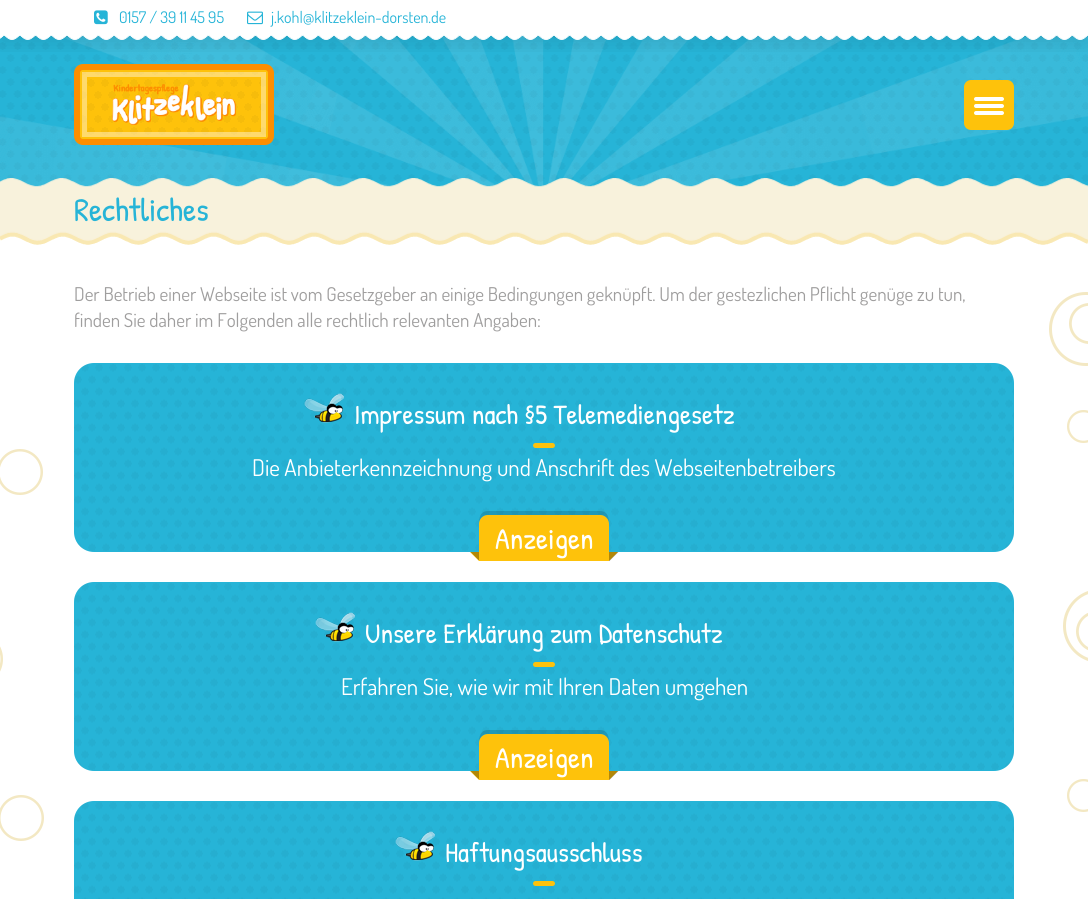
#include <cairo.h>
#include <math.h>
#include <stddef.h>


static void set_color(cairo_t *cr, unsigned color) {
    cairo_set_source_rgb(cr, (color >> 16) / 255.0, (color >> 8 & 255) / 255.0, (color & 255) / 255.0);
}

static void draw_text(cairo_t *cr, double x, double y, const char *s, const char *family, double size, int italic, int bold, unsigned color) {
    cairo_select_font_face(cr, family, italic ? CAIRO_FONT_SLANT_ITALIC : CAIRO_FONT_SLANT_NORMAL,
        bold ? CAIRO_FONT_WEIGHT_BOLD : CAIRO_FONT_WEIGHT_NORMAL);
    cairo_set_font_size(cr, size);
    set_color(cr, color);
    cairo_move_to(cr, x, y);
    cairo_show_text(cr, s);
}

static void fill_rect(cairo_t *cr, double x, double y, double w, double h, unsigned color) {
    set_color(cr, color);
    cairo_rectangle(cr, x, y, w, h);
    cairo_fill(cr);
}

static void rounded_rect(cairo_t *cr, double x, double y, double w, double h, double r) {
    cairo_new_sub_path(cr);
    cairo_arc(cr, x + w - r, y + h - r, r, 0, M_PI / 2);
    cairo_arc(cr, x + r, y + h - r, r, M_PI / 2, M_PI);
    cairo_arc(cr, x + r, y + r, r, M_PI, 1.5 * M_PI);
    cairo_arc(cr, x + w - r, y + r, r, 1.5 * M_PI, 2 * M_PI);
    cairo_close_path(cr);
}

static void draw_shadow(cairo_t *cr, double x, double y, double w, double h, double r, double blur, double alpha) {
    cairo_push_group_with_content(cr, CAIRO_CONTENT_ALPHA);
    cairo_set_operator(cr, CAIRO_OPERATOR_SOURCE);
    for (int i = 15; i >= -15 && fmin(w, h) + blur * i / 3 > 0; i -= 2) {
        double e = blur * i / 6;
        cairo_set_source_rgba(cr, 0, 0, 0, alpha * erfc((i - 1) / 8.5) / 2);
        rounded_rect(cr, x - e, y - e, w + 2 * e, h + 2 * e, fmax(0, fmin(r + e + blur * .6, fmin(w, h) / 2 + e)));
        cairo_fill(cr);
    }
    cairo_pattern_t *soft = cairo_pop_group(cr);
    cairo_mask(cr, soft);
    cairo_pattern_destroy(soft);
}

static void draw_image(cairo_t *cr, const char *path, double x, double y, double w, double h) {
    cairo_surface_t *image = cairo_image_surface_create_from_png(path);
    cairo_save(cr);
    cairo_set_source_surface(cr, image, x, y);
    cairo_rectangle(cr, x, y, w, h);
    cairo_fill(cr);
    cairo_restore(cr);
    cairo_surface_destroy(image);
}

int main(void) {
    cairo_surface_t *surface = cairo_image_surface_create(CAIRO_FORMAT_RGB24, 1088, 899);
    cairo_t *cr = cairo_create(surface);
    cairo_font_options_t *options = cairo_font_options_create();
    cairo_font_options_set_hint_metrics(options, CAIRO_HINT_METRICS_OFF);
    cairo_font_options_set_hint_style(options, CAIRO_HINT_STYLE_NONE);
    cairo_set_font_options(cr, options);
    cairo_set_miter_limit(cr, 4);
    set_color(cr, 0xFFFFFF);
    cairo_paint(cr);
    fill_rect(cr, 0, 34, 1088, 153, 0x26B4D7);
    draw_image(cr, "assets/img4.png", 0, 34, 1088, 153);
    draw_image(cr, "assets/img5.png", 0, 34, 1088, 153);
    set_color(cr, 0xFEC20B);
    rounded_rect(cr, 77, 67, 194, 75, 6);
    cairo_fill_preserve(cr);
    set_color(cr, 0xFD8E00);
    cairo_set_line_width(cr, 6);
    cairo_stroke(cr);
    draw_image(cr, "assets/img6.png", 82, 72, 184, 63);
    cairo_new_path(cr);
    cairo_move_to(cr, 84.5, 74.5);
    cairo_line_to(cr, 263.5, 74.5);
    cairo_line_to(cr, 263.5, 134.5);
    cairo_line_to(cr, 84.5, 134.5);
    cairo_close_path(cr);
    cairo_set_source_rgba(cr, 1, 1, 1, 0.4);
    cairo_set_line_width(cr, 5);
    cairo_stroke(cr);
    cairo_save(cr);
    cairo_rectangle(cr, 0, 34, 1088, 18);
    cairo_clip(cr);
    set_color(cr, 0x000000);
    draw_shadow(cr, 0, 10, 1088, 34, 0, 10, 0.1);
    cairo_restore(cr);
    draw_image(cr, "assets/img1.png", 94, 10, 14, 15);
    draw_text(cr, 119, 23, "0157 / 39 11 45 95", "Dosis", 16, 0, 0, 0x26B4D7);
    draw_image(cr, "assets/img2.png", 247, 11, 16, 14);
    draw_text(cr, 271, 23, "j.kohl@klitzeklein-dorsten.de", "Dosis", 16, 0, 0, 0x26B4D7);
    draw_image(cr, "assets/img3.png", 0, 34, 1088, 6);
    draw_image(cr, "assets/img7.png", 112, 84, 124, 41);
    set_color(cr, 0xFEC20B);
    rounded_rect(cr, 964, 80, 50, 50, 7);
    cairo_fill(cr);
    set_color(cr, 0xFFFFFF);
    rounded_rect(cr, 974, 97, 30, 4, 2);
    cairo_fill(cr);
    rounded_rect(cr, 974, 104, 30, 4, 2);
    cairo_fill(cr);
    rounded_rect(cr, 974, 111, 30, 4, 2);
    cairo_fill(cr);
    draw_image(cr, "assets/img8.png", 0, 178, 1088, 67);
    draw_text(cr, 74, 221, "Rechtliches", "Patrick Hand", 33, 0, 0, 0x26B4D7);
    draw_image(cr, "assets/img9.png", 0, 449, 44, 392);
    draw_text(cr, 74, 301, "Der Betrieb einer Webseite ist vom Gesetzgeber an einige Bedingungen geknüpft. Um der gestezlichen Pflicht genüge zu tun,", "Dosis", 19, 0, 0, 0x9F9E9E);
    draw_text(cr, 74, 327, "finden Sie daher im Folgenden alle rechtlich relevanten Angaben:", "Dosis", 19, 0, 0, 0x9F9E9E);
    set_color(cr, 0x26B4D7);
    rounded_rect(cr, 74, 363, 940, 189, 20);
    cairo_fill(cr);
    draw_image(cr, "assets/img10.png", 74, 364, 940, 187);
    draw_image(cr, "assets/img11.png", 304, 393, 40, 30);
    draw_text(cr, 354, 424, "Impressum nach §5 Telemediengesetz", "Patrick Hand", 28, 0, 0, 0xFFFFFF);
    set_color(cr, 0xFEC20B);
    rounded_rect(cr, 533, 443, 22, 5, 2.5);
    cairo_fill(cr);
    draw_text(cr, 252, 476, "Die Anbieterkennzeichnung und Anschrift des Webseitenbetreibers", "Dosis", 23, 0, 0, 0xFFFFFF);
    cairo_set_source_rgba(cr, 0, 0, 0, 0.15);
    cairo_new_path(cr);
    cairo_move_to(cr, 488, 511);
    cairo_curve_to(cr, 480, 511, 479, 518, 479, 524);
    cairo_curve_to(cr, 479, 519, 483, 515, 488, 515);
    cairo_line_to(cr, 600, 515);
    cairo_curve_to(cr, 605, 515, 609, 519, 609, 524);
    cairo_curve_to(cr, 609, 518, 608, 511, 600, 511);
    cairo_close_path(cr);
    cairo_fill(cr);
    set_color(cr, 0xFEC20B);
    cairo_new_path(cr);
    cairo_move_to(cr, 470, 552);
    cairo_line_to(cr, 595, 552);
    cairo_line_to(cr, 604, 561);
    cairo_line_to(cr, 479, 561);
    cairo_close_path(cr);
    cairo_fill(cr);
    cairo_new_path(cr);
    cairo_move_to(cr, 493, 552);
    cairo_line_to(cr, 618, 552);
    cairo_line_to(cr, 609, 561);
    cairo_line_to(cr, 484, 561);
    cairo_close_path(cr);
    cairo_fill(cr);
    cairo_new_path(cr);
    cairo_move_to(cr, 488, 515);
    cairo_line_to(cr, 600, 515);
    cairo_curve_to(cr, 605, 515, 609, 519, 609, 524);
    cairo_line_to(cr, 609, 561);
    cairo_line_to(cr, 479, 561);
    cairo_line_to(cr, 479, 524);
    cairo_curve_to(cr, 479, 519, 483, 515, 488, 515);
    cairo_close_path(cr);
    cairo_fill(cr);
    draw_text(cr, 495, 549, "Anzeigen", "Patrick Hand", 30, 0, 0, 0xFFFFFF);
    draw_image(cr, "assets/img12.png", 470, 552, 9, 9);
    draw_image(cr, "assets/img13.png", 609, 552, 10, 9);
    set_color(cr, 0x26B4D7);
    rounded_rect(cr, 74, 582, 940, 189, 20);
    cairo_fill(cr);
    draw_image(cr, "assets/img14.png", 74, 583, 940, 187);
    draw_image(cr, "assets/img15.png", 315, 612, 40, 30);
    draw_text(cr, 365, 643, "Unsere Erklärung zum Datenschutz", "Patrick Hand", 28, 0, 0, 0xFFFFFF);
    set_color(cr, 0xFEC20B);
    rounded_rect(cr, 533, 662, 22, 5, 2.5);
    cairo_fill(cr);
    draw_text(cr, 341, 695, "Erfahren Sie, wie wir mit Ihren Daten umgehen", "Dosis", 23, 0, 0, 0xFFFFFF);
    cairo_set_source_rgba(cr, 0, 0, 0, 0.15);
    cairo_new_path(cr);
    cairo_move_to(cr, 488, 730);
    cairo_curve_to(cr, 480, 730, 479, 737, 479, 743);
    cairo_curve_to(cr, 479, 738, 483, 734, 488, 734);
    cairo_line_to(cr, 600, 734);
    cairo_curve_to(cr, 605, 734, 609, 738, 609, 743);
    cairo_curve_to(cr, 609, 737, 608, 730, 600, 730);
    cairo_close_path(cr);
    cairo_fill(cr);
    set_color(cr, 0xFEC20B);
    cairo_new_path(cr);
    cairo_move_to(cr, 470, 771);
    cairo_line_to(cr, 595, 771);
    cairo_line_to(cr, 604, 780);
    cairo_line_to(cr, 479, 780);
    cairo_close_path(cr);
    cairo_fill(cr);
    cairo_new_path(cr);
    cairo_move_to(cr, 493, 771);
    cairo_line_to(cr, 618, 771);
    cairo_line_to(cr, 609, 780);
    cairo_line_to(cr, 484, 780);
    cairo_close_path(cr);
    cairo_fill(cr);
    cairo_new_path(cr);
    cairo_move_to(cr, 488, 734);
    cairo_line_to(cr, 600, 734);
    cairo_curve_to(cr, 605, 734, 609, 738, 609, 743);
    cairo_line_to(cr, 609, 780);
    cairo_line_to(cr, 479, 780);
    cairo_line_to(cr, 479, 743);
    cairo_curve_to(cr, 479, 738, 483, 734, 488, 734);
    cairo_close_path(cr);
    cairo_fill(cr);
    draw_text(cr, 495, 768, "Anzeigen", "Patrick Hand", 30, 0, 0, 0xFFFFFF);
    draw_image(cr, "assets/img12.png", 470, 771, 9, 9);
    draw_image(cr, "assets/img13.png", 609, 771, 10, 9);
    set_color(cr, 0x26B4D7);
    rounded_rect(cr, 74, 801, 940, 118, 20);
    cairo_fill(cr);
    draw_image(cr, "assets/img16.png", 74, 802, 940, 97);
    draw_image(cr, "assets/img17.png", 395, 831, 40, 30);
    draw_text(cr, 445, 862, "Haftungsausschluss", "Patrick Hand", 28, 0, 0, 0xFFFFFF);
    set_color(cr, 0xFEC20B);
    rounded_rect(cr, 533, 881, 22, 5, 2.5);
    cairo_fill(cr);
    draw_image(cr, "assets/img18.png", 1049, 292, 39, 520);
    cairo_surface_write_to_png(surface, "output.png");
    cairo_font_options_destroy(options);
    cairo_destroy(cr);
    cairo_surface_destroy(surface);
    return 0;
}
